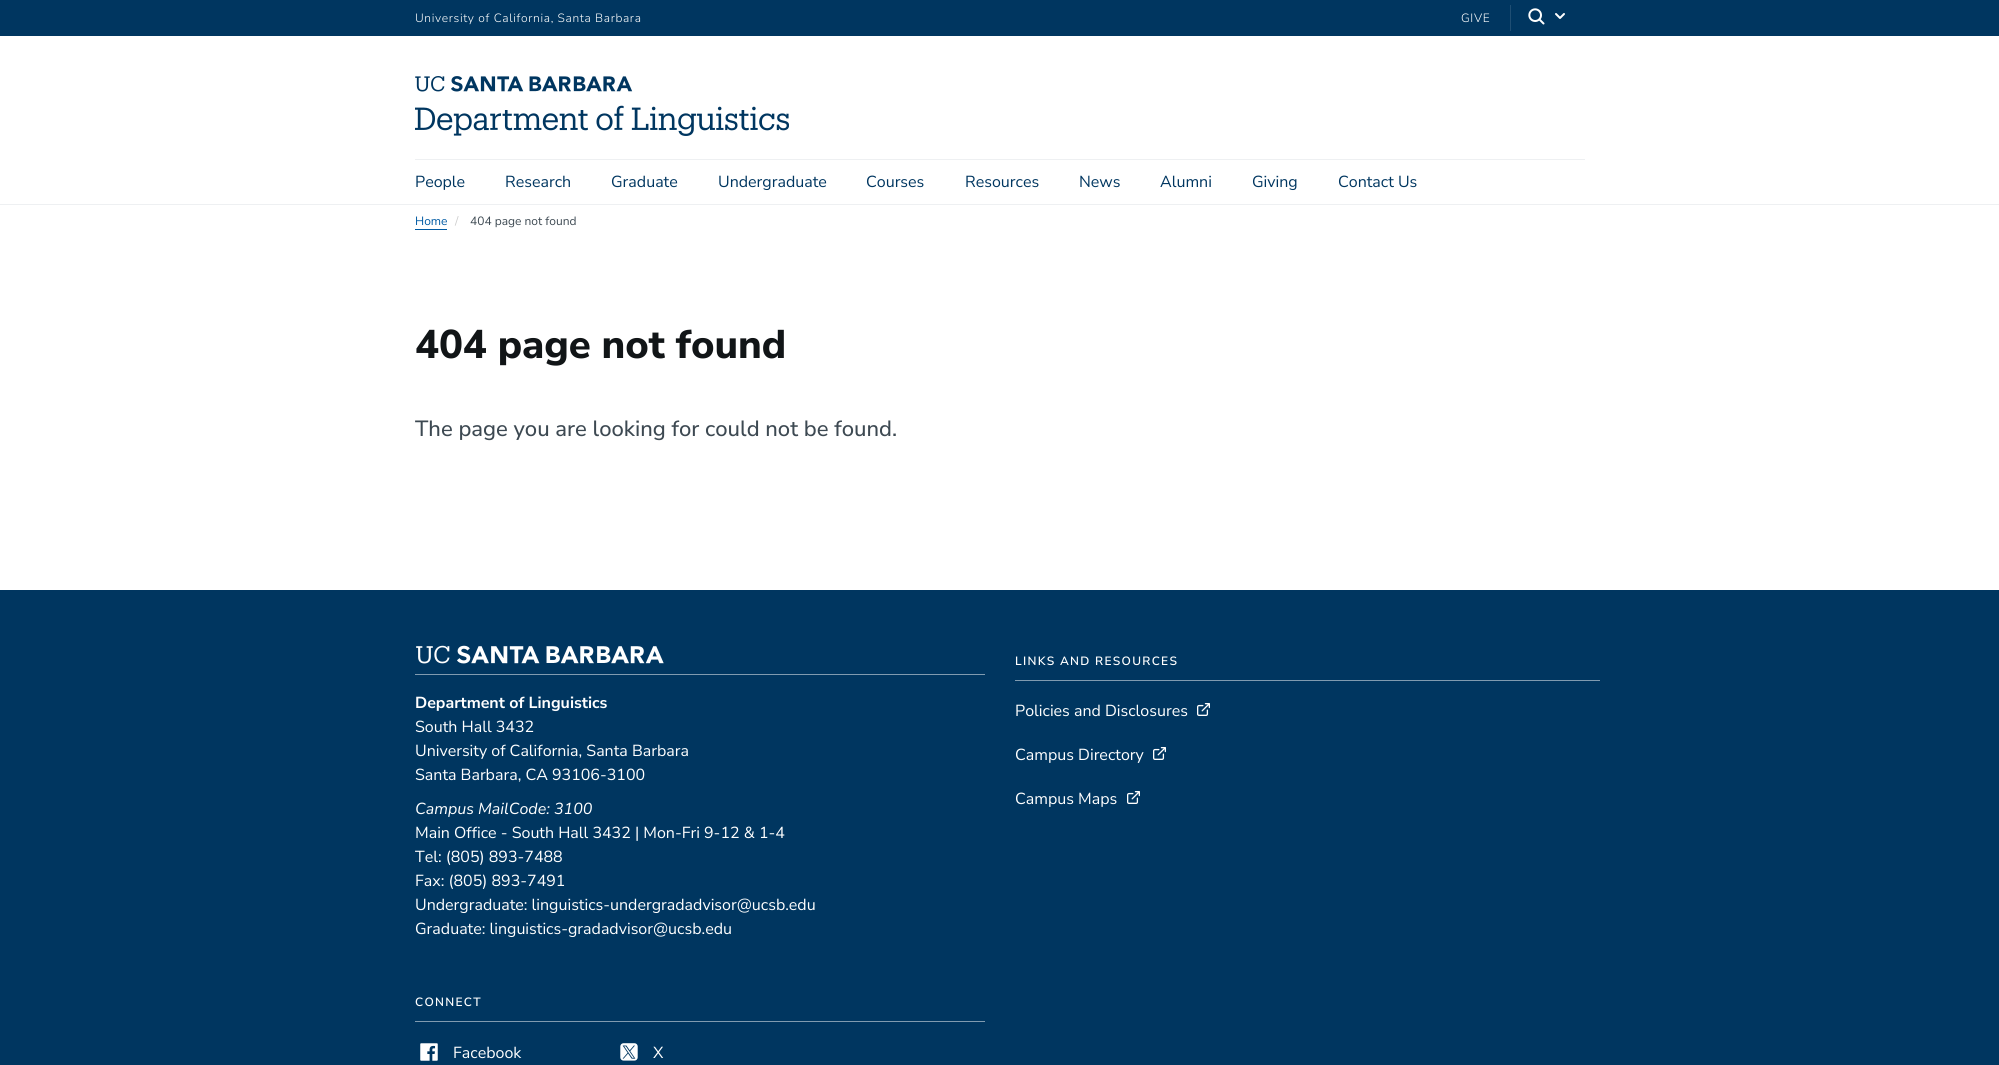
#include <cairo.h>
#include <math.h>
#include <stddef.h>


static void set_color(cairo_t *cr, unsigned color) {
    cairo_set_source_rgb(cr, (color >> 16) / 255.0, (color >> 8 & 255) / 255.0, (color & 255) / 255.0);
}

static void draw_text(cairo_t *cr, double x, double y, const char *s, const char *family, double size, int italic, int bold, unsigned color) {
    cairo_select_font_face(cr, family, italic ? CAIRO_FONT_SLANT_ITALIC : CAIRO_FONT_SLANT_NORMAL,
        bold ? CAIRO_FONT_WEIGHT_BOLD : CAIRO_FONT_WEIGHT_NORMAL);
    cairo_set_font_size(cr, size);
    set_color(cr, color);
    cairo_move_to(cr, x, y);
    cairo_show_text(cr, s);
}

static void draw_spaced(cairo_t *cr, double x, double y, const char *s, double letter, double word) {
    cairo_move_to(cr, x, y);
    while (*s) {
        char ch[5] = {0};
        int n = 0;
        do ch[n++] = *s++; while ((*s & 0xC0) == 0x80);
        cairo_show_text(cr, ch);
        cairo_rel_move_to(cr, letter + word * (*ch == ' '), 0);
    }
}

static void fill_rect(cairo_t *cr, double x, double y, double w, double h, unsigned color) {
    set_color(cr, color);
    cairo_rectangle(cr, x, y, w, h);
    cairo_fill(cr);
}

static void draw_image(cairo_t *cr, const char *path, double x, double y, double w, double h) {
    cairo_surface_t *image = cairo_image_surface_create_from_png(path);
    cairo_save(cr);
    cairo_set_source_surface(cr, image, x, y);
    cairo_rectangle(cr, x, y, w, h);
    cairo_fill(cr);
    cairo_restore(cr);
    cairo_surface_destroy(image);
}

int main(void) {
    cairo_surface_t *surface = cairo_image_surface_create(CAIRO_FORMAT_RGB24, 1999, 1065);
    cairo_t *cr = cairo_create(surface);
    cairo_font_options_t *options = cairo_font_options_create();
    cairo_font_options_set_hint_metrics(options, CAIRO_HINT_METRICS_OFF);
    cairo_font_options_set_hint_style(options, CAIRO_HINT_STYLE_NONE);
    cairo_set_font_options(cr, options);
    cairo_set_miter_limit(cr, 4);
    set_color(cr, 0xFFFFFF);
    cairo_paint(cr);
    fill_rect(cr, 0, 204, 1999, 1, 0xEEF0F2);
    fill_rect(cr, 0, 0, 1999, 36, 0x003660);
    cairo_select_font_face(cr, "Nunito Sans Light", CAIRO_FONT_SLANT_NORMAL, CAIRO_FONT_WEIGHT_NORMAL);
    cairo_set_font_size(cr, 12);
    set_color(cr, 0xFFFFFF);
    draw_spaced(cr, 415, 22, "University of California, Santa Barbara", 0.65, 0);
    draw_spaced(cr, 1461, 22, "GIVE", 0.65, 0);
    fill_rect(cr, 1510, 5, 1, 26, 0x1F4E73);
    draw_image(cr, "assets/img1.png", 1528, 8, 17, 17);
    draw_image(cr, "assets/img2.png", 1555, 13, 10, 6);
    fill_rect(cr, 415, 159, 1170, 1, 0xEEF0F2);
    draw_image(cr, "assets/img3.png", 415, 76, 374, 60);
    draw_text(cr, 415, 187, "People", "Nunito Sans", 16, 0, 0, 0x003660);
    draw_text(cr, 505, 187, "Research", "Nunito Sans", 16, 0, 0, 0x003660);
    draw_text(cr, 611, 187, "Graduate", "Nunito Sans", 16, 0, 0, 0x003660);
    draw_text(cr, 718, 187, "Undergraduate", "Nunito Sans", 16, 0, 0, 0x003660);
    draw_text(cr, 866, 187, "Courses", "Nunito Sans", 16, 0, 0, 0x003660);
    draw_text(cr, 965, 187, "Resources", "Nunito Sans", 16, 0, 0, 0x003660);
    draw_text(cr, 1079, 187, "News", "Nunito Sans", 16, 0, 0, 0x003660);
    draw_text(cr, 1160, 187, "Alumni", "Nunito Sans", 16, 0, 0, 0x003660);
    draw_text(cr, 1252, 187, "Giving", "Nunito Sans", 16, 0, 0, 0x003660);
    draw_text(cr, 1338, 187, "Contact Us", "Nunito Sans", 16, 0, 0, 0x003660);
    draw_text(cr, 415, 225, "Home", "Nunito Sans", 12, 0, 0, 0x005AA3);
    fill_rect(cr, 415, 229, 32, 1, 0x005AA3);
    draw_text(cr, 455, 225, "/", "Nunito Sans", 12, 0, 0, 0xCCCCCC);
    draw_text(cr, 470, 225, "404 page not found", "Nunito Sans", 12, 0, 0, 0x3D4952);
    cairo_select_font_face(cr, "Nunito Sans ExtraBold", CAIRO_FONT_SLANT_NORMAL, CAIRO_FONT_WEIGHT_NORMAL);
    cairo_set_font_size(cr, 40);
    set_color(cr, 0x111517);
    draw_spaced(cr, 415, 358, "404 page not found", -0.1, 0);
    draw_text(cr, 415, 436, "The page you are looking for could not be found.", "Nunito Sans Medium", 22, 0, 0, 0x3D4952);
    fill_rect(cr, 0, 590, 1999, 475, 0x003660);
    fill_rect(cr, 415, 674, 570, 1, 0x809BB0);
    draw_image(cr, "assets/img4.png", 416, 645, 248, 19);
    draw_text(cr, 415, 708, "Department of Linguistics", "Nunito Sans", 16, 0, 1, 0xFFFFFF);
    draw_text(cr, 415, 732, "South Hall 3432", "Nunito Sans", 16, 0, 0, 0xFFFFFF);
    draw_text(cr, 415, 756, "University of California, Santa Barbara", "Nunito Sans", 16, 0, 0, 0xFFFFFF);
    draw_text(cr, 415, 780, "Santa Barbara, CA 93106-3100", "Nunito Sans", 16, 0, 0, 0xFFFFFF);
    draw_text(cr, 415, 814, "Campus MailCode: 3100", "Nunito Sans", 16, 1, 0, 0xFFFFFF);
    draw_text(cr, 415, 838, "Main Office - South Hall 3432 | Mon-Fri 9-12 & 1-4", "Nunito Sans", 16, 0, 0, 0xFFFFFF);
    draw_text(cr, 415, 862, "Tel: (805) 893-7488", "Nunito Sans", 16, 0, 0, 0xFFFFFF);
    draw_text(cr, 415, 886, "Fax: (805) 893-7491", "Nunito Sans", 16, 0, 0, 0xFFFFFF);
    draw_text(cr, 415, 910, "Undergraduate: linguistics-undergradadvisor@ucsb.edu", "Nunito Sans", 16, 0, 0, 0xFFFFFF);
    draw_text(cr, 415, 934, "Graduate: linguistics-gradadvisor@ucsb.edu", "Nunito Sans", 16, 0, 0, 0xFFFFFF);
    fill_rect(cr, 415, 1021, 570, 1, 0x809BB0);
    cairo_select_font_face(cr, "Nunito Sans SemiBold", CAIRO_FONT_SLANT_NORMAL, CAIRO_FONT_WEIGHT_NORMAL);
    cairo_set_font_size(cr, 12);
    set_color(cr, 0xFFFFFF);
    draw_spaced(cr, 415, 1006, "CONNECT", 1.3, 0);
    draw_image(cr, "assets/img5.png", 420, 1043, 18, 18);
    draw_text(cr, 453, 1058, "Facebook", "Nunito Sans", 16, 0, 0, 0xFFFFFF);
    draw_image(cr, "assets/img6.png", 620, 1043, 18, 18);
    draw_text(cr, 653, 1058, "X", "Nunito Sans", 16, 0, 0, 0xFFFFFF);
    fill_rect(cr, 1015, 680, 585, 1, 0x809BB0);
    cairo_select_font_face(cr, "Nunito Sans SemiBold", CAIRO_FONT_SLANT_NORMAL, CAIRO_FONT_WEIGHT_NORMAL);
    cairo_set_font_size(cr, 12);
    set_color(cr, 0xFFFFFF);
    draw_spaced(cr, 1015, 665, "LINKS AND RESOURCES", 1.3, 0);
    draw_text(cr, 1015, 716, "Policies and Disclosures", "Nunito Sans", 16, 0, 0, 0xFFFFFF);
    draw_image(cr, "assets/img7.png", 1197, 703, 13, 13);
    draw_text(cr, 1015, 760, "Campus Directory", "Nunito Sans", 16, 0, 0, 0xFFFFFF);
    draw_image(cr, "assets/img7.png", 1153, 747, 13, 13);
    draw_text(cr, 1015, 804, "Campus Maps", "Nunito Sans", 16, 0, 0, 0xFFFFFF);
    draw_image(cr, "assets/img7.png", 1127, 791, 13, 13);
    cairo_surface_write_to_png(surface, "output.png");
    cairo_font_options_destroy(options);
    cairo_destroy(cr);
    cairo_surface_destroy(surface);
    return 0;
}
